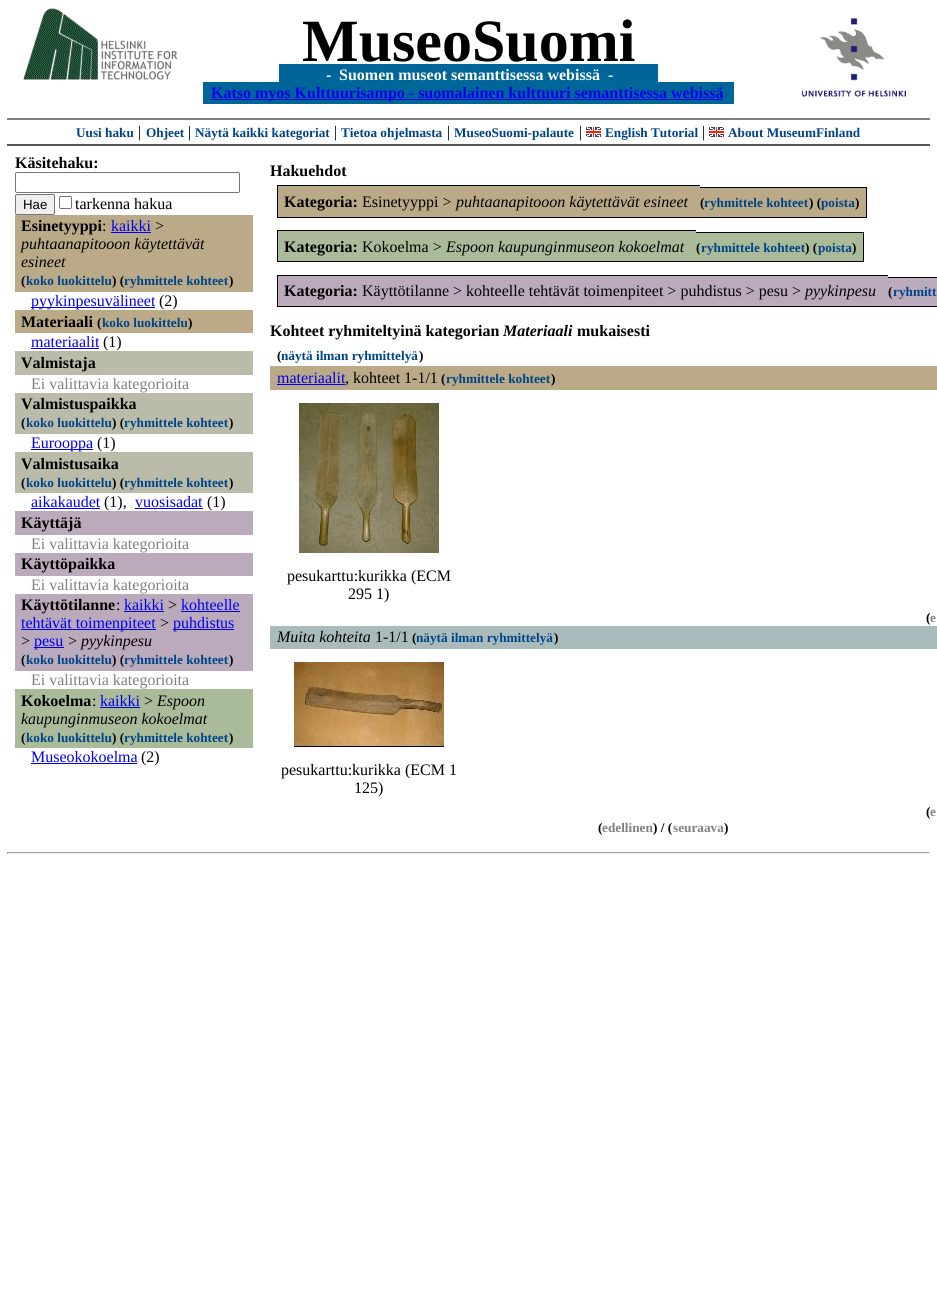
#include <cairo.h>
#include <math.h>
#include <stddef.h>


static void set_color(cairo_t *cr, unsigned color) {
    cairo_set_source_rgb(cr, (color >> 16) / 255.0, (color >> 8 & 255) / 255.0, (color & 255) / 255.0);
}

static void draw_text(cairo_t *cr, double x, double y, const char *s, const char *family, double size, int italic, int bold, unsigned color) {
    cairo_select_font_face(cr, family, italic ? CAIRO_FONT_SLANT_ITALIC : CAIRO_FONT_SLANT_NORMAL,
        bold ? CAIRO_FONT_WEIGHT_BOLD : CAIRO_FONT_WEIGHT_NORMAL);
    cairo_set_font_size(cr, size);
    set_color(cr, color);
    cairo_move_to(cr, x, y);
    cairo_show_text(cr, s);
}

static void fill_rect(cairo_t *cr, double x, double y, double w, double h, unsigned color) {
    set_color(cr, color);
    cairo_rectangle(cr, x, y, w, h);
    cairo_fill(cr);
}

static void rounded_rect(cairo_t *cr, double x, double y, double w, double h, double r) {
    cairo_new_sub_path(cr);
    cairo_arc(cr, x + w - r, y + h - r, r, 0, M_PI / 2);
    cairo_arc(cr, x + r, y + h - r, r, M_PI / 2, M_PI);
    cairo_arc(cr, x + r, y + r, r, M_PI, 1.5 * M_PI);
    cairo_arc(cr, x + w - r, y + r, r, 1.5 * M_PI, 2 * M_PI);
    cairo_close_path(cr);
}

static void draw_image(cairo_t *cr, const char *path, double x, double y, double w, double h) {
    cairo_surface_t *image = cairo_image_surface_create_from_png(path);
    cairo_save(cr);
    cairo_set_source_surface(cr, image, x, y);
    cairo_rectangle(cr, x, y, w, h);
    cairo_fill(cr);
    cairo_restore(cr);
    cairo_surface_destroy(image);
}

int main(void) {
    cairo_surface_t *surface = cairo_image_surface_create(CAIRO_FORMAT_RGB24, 937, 1289);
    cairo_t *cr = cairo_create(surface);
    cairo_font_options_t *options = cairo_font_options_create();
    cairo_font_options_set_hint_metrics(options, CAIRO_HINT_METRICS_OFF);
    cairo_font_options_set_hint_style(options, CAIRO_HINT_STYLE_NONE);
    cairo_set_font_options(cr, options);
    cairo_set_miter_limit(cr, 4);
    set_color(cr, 0xFFFFFF);
    cairo_paint(cr);
    draw_image(cr, "assets/img1.png", 23, 8, 155, 72);
    draw_text(cr, 302, 61, "MuseoSuomi", "Liberation Serif", 60, 0, 1, 0x000000);
    draw_image(cr, "assets/img2.png", 801, 18, 105, 79);
    fill_rect(cr, 279, 64, 379, 18, 0x006699);
    draw_text(cr, 326, 80, "-", "Liberation Serif", 16, 0, 1, 0xFFFFFF);
    draw_text(cr, 339, 80, "Suomen museot semanttisessa webissä", "Liberation Serif", 16, 0, 1, 0xFFFFFF);
    draw_text(cr, 608, 80, "-", "Liberation Serif", 16, 0, 1, 0xFFFFFF);
    fill_rect(cr, 203, 82, 531, 22, 0x006699);
    fill_rect(cr, 211, 99, 512, 1, 0x0000EE);
    draw_text(cr, 211, 98, "Katso myos Kulttuurisampo - suomalainen kulttuuri semanttisessa webissä", "Liberation Serif", 16, 0, 1, 0x0000EE);
    fill_rect(cr, 7, 118, 923, 2, 0x808080);
    fill_rect(cr, 7, 144, 923, 2, 0x555555);
    draw_text(cr, 76, 137, "Uusi haku", "Liberation Serif", 13.25, 0, 1, 0x004488);
    draw_text(cr, 138, 137, "|", "Liberation Serif", 16, 0, 0, 0x000000);
    draw_text(cr, 146, 137, "Ohjeet", "Liberation Serif", 13.25, 0, 1, 0x004488);
    draw_text(cr, 188, 137, "|", "Liberation Serif", 16, 0, 0, 0x000000);
    draw_text(cr, 195, 137, "Näytä kaikki kategoriat", "Liberation Serif", 13.25, 0, 1, 0x004488);
    draw_text(cr, 334, 137, "|", "Liberation Serif", 16, 0, 0, 0x000000);
    draw_text(cr, 341, 137, "Tietoa ohjelmasta", "Liberation Serif", 13.25, 0, 1, 0x004488);
    draw_text(cr, 447, 137, "|", "Liberation Serif", 16, 0, 0, 0x000000);
    draw_text(cr, 454, 137, "MuseoSuomi-palaute", "Liberation Serif", 13.25, 0, 1, 0x004488);
    draw_text(cr, 579, 137, "|", "Liberation Serif", 16, 0, 0, 0x000000);
    draw_image(cr, "assets/img3.png", 586, 127, 15, 10);
    draw_text(cr, 605, 137, "English Tutorial", "Liberation Serif", 13.25, 0, 1, 0x004488);
    draw_text(cr, 702, 137, "|", "Liberation Serif", 16, 0, 0, 0x000000);
    draw_image(cr, "assets/img3.png", 709, 127, 15, 10);
    draw_text(cr, 728, 137, "About MuseumFinland", "Liberation Serif", 13.25, 0, 1, 0x004488);
    draw_text(cr, 15, 168, "Käsitehaku:", "Liberation Serif", 16, 0, 1, 0x000000);
    rounded_rect(cr, 15.5, 172.5, 224, 20, 1.5);
    set_color(cr, 0x767676);
    cairo_set_line_width(cr, 1);
    cairo_stroke(cr);
    set_color(cr, 0xEFEFEF);
    rounded_rect(cr, 15.5, 194.5, 39, 20, 1.5);
    cairo_fill_preserve(cr);
    set_color(cr, 0x767676);
    cairo_stroke(cr);
    draw_text(cr, 23, 209, "Hae", "Liberation Sans", 13.25, 0, 0, 0x000000);
    rounded_rect(cr, 59.5, 196.5, 12, 12, 1.5);
    set_color(cr, 0x767676);
    cairo_stroke(cr);
    draw_text(cr, 75, 209, "tarkenna hakua", "Liberation Serif", 16, 0, 0, 0x000000);
    fill_rect(cr, 15, 215, 238, 77, 0xBBAA88);
    draw_text(cr, 21, 231, "Esinetyyppi", "Liberation Serif", 16, 0, 1, 0x000000);
    draw_text(cr, 102, 231, ":", "Liberation Serif", 16, 0, 0, 0x000000);
    draw_text(cr, 111, 231, "kaikki", "Liberation Serif", 16, 0, 0, 0x0000EE);
    fill_rect(cr, 111, 232, 40, 1, 0x0000EE);
    draw_text(cr, 155, 231, ">", "Liberation Serif", 16, 0, 0, 0x000000);
    draw_text(cr, 21, 249, "puhtaanapitooon käytettävät", "Liberation Serif", 16, 1, 0, 0x000000);
    draw_text(cr, 21, 267, "esineet", "Liberation Serif", 16, 1, 0, 0x000000);
    draw_text(cr, 21, 285, "(", "Liberation Serif", 13.25, 0, 1, 0x000000);
    draw_text(cr, 26, 285, "koko luokittelu", "Liberation Serif", 13.25, 0, 1, 0x004488);
    draw_text(cr, 112, 285, ") (", "Liberation Serif", 13.25, 0, 1, 0x000000);
    draw_text(cr, 124, 285, "ryhmittele kohteet", "Liberation Serif", 13.25, 0, 1, 0x004488);
    draw_text(cr, 229, 285, ")", "Liberation Serif", 13.25, 0, 1, 0x000000);
    fill_rect(cr, 31, 307, 124, 1, 0x0000EE);
    draw_text(cr, 31, 306, "pyykinpesuvälineet", "Liberation Serif", 16, 0, 0, 0x0000EE);
    draw_text(cr, 159, 306, "(2)", "Liberation Serif", 16, 0, 0, 0x000000);
    fill_rect(cr, 15, 310, 238, 23, 0xBBAA88);
    draw_text(cr, 21, 327, "Materiaali", "Liberation Serif", 16, 0, 1, 0x000000);
    draw_text(cr, 97, 327, "(", "Liberation Serif", 13.25, 0, 1, 0x000000);
    draw_text(cr, 102, 327, "koko luokittelu", "Liberation Serif", 13.25, 0, 1, 0x004488);
    draw_text(cr, 188, 327, ")", "Liberation Serif", 13.25, 0, 1, 0x000000);
    draw_text(cr, 31, 347, "materiaalit", "Liberation Serif", 16, 0, 0, 0x0000EE);
    fill_rect(cr, 31, 348, 68, 1, 0x0000EE);
    draw_text(cr, 103, 347, "(1)", "Liberation Serif", 16, 0, 0, 0x000000);
    fill_rect(cr, 15, 351, 238, 24, 0xBBBBAA);
    draw_text(cr, 21, 368, "Valmistaja", "Liberation Serif", 16, 0, 1, 0x000000);
    draw_text(cr, 31, 389, "Ei valittavia kategorioita", "Liberation Serif", 16, 0, 0, 0x808080);
    fill_rect(cr, 15, 393, 238, 41, 0xBBBBAA);
    draw_text(cr, 21, 409, "Valmistuspaikka", "Liberation Serif", 16, 0, 1, 0x000000);
    draw_text(cr, 21, 427, "(", "Liberation Serif", 13.25, 0, 1, 0x000000);
    draw_text(cr, 26, 427, "koko luokittelu", "Liberation Serif", 13.25, 0, 1, 0x004488);
    draw_text(cr, 112, 427, ") (", "Liberation Serif", 13.25, 0, 1, 0x000000);
    draw_text(cr, 124, 427, "ryhmittele kohteet", "Liberation Serif", 13.25, 0, 1, 0x004488);
    draw_text(cr, 229, 427, ")", "Liberation Serif", 13.25, 0, 1, 0x000000);
    fill_rect(cr, 31, 449, 62, 1, 0x0000EE);
    draw_text(cr, 31, 448, "Eurooppa", "Liberation Serif", 16, 0, 0, 0x0000EE);
    draw_text(cr, 97, 448, "(1)", "Liberation Serif", 16, 0, 0, 0x000000);
    fill_rect(cr, 15, 452, 238, 41, 0xBBBBAA);
    draw_text(cr, 21, 469, "Valmistusaika", "Liberation Serif", 16, 0, 1, 0x000000);
    draw_text(cr, 21, 487, "(", "Liberation Serif", 13.25, 0, 1, 0x000000);
    draw_text(cr, 26, 487, "koko luokittelu", "Liberation Serif", 13.25, 0, 1, 0x004488);
    draw_text(cr, 112, 487, ") (", "Liberation Serif", 13.25, 0, 1, 0x000000);
    draw_text(cr, 124, 487, "ryhmittele kohteet", "Liberation Serif", 13.25, 0, 1, 0x004488);
    draw_text(cr, 229, 487, ")", "Liberation Serif", 13.25, 0, 1, 0x000000);
    draw_text(cr, 31, 507, "aikakaudet", "Liberation Serif", 16, 0, 0, 0x0000EE);
    fill_rect(cr, 31, 508, 69, 1, 0x0000EE);
    draw_text(cr, 104, 507, "(1),", "Liberation Serif", 16, 0, 0, 0x000000);
    draw_text(cr, 135, 507, "vuosisadat", "Liberation Serif", 16, 0, 0, 0x0000EE);
    fill_rect(cr, 135, 508, 68, 1, 0x0000EE);
    draw_text(cr, 207, 507, "(1)", "Liberation Serif", 16, 0, 0, 0x000000);
    fill_rect(cr, 15, 511, 238, 24, 0xBBAABB);
    draw_text(cr, 21, 528, "Käyttäjä", "Liberation Serif", 16, 0, 1, 0x000000);
    draw_text(cr, 31, 549, "Ei valittavia kategorioita", "Liberation Serif", 16, 0, 0, 0x808080);
    fill_rect(cr, 15, 553, 238, 23, 0xBBAABB);
    draw_text(cr, 21, 569, "Käyttöpaikka", "Liberation Serif", 16, 0, 1, 0x000000);
    draw_text(cr, 31, 590, "Ei valittavia kategorioita", "Liberation Serif", 16, 0, 0, 0x808080);
    fill_rect(cr, 15, 594, 238, 77, 0xBBAABB);
    draw_text(cr, 21, 610, "Käyttötilanne", "Liberation Serif", 16, 0, 1, 0x000000);
    draw_text(cr, 116, 610, ":", "Liberation Serif", 16, 0, 0, 0x000000);
    draw_text(cr, 124, 610, "kaikki", "Liberation Serif", 16, 0, 0, 0x0000EE);
    fill_rect(cr, 124, 611, 40, 1, 0x0000EE);
    draw_text(cr, 168, 610, ">", "Liberation Serif", 16, 0, 0, 0x000000);
    draw_text(cr, 181, 610, "kohteelle", "Liberation Serif", 16, 0, 0, 0x0000EE);
    fill_rect(cr, 181, 611, 59, 1, 0x0000EE);
    fill_rect(cr, 21, 629, 135, 1, 0x0000EE);
    draw_text(cr, 21, 628, "tehtävät toimenpiteet", "Liberation Serif", 16, 0, 0, 0x0000EE);
    draw_text(cr, 160, 628, ">", "Liberation Serif", 16, 0, 0, 0x000000);
    fill_rect(cr, 173, 629, 61, 1, 0x0000EE);
    draw_text(cr, 173, 628, "puhdistus", "Liberation Serif", 16, 0, 0, 0x0000EE);
    draw_text(cr, 21, 646, ">", "Liberation Serif", 16, 0, 0, 0x000000);
    fill_rect(cr, 34, 647, 30, 1, 0x0000EE);
    draw_text(cr, 34, 646, "pesu", "Liberation Serif", 16, 0, 0, 0x0000EE);
    draw_text(cr, 68, 646, ">", "Liberation Serif", 16, 0, 0, 0x000000);
    draw_text(cr, 81, 646, "pyykinpesu", "Liberation Serif", 16, 1, 0, 0x000000);
    draw_text(cr, 21, 664, "(", "Liberation Serif", 13.25, 0, 1, 0x000000);
    draw_text(cr, 26, 664, "koko luokittelu", "Liberation Serif", 13.25, 0, 1, 0x004488);
    draw_text(cr, 112, 664, ") (", "Liberation Serif", 13.25, 0, 1, 0x000000);
    draw_text(cr, 124, 664, "ryhmittele kohteet", "Liberation Serif", 13.25, 0, 1, 0x004488);
    draw_text(cr, 229, 664, ")", "Liberation Serif", 13.25, 0, 1, 0x000000);
    draw_text(cr, 31, 685, "Ei valittavia kategorioita", "Liberation Serif", 16, 0, 0, 0x808080);
    fill_rect(cr, 15, 689, 238, 59, 0xAABB99);
    draw_text(cr, 21, 706, "Kokoelma", "Liberation Serif", 16, 0, 1, 0x000000);
    draw_text(cr, 92, 706, ":", "Liberation Serif", 16, 0, 0, 0x000000);
    draw_text(cr, 100, 706, "kaikki", "Liberation Serif", 16, 0, 0, 0x0000EE);
    fill_rect(cr, 100, 707, 40, 1, 0x0000EE);
    draw_text(cr, 144, 706, ">", "Liberation Serif", 16, 0, 0, 0x000000);
    draw_text(cr, 157, 706, "Espoon", "Liberation Serif", 16, 1, 0, 0x000000);
    draw_text(cr, 21, 724, "kaupunginmuseon kokoelmat", "Liberation Serif", 16, 1, 0, 0x000000);
    draw_text(cr, 21, 742, "(", "Liberation Serif", 13.25, 0, 1, 0x000000);
    draw_text(cr, 26, 742, "koko luokittelu", "Liberation Serif", 13.25, 0, 1, 0x004488);
    draw_text(cr, 112, 742, ") (", "Liberation Serif", 13.25, 0, 1, 0x000000);
    draw_text(cr, 124, 742, "ryhmittele kohteet", "Liberation Serif", 13.25, 0, 1, 0x004488);
    draw_text(cr, 229, 742, ")", "Liberation Serif", 13.25, 0, 1, 0x000000);
    draw_text(cr, 31, 762, "Museokokoelma", "Liberation Serif", 16, 0, 0, 0x0000EE);
    fill_rect(cr, 31, 763, 106, 1, 0x0000EE);
    draw_text(cr, 141, 762, "(2)", "Liberation Serif", 16, 0, 0, 0x000000);
    draw_text(cr, 270, 176, "Hakuehdot", "Liberation Serif", 16, 0, 1, 0x000000);
    fill_rect(cr, 278, 186, 422, 31, 0xBBAA88);
    draw_text(cr, 284, 207, "Kategoria:", "Liberation Serif", 16, 0, 1, 0x000000);
    fill_rect(cr, 277, 185, 423, 1, 0x000000);
    fill_rect(cr, 277, 217, 423, 1, 0x000000);
    fill_rect(cr, 277, 185, 1, 33, 0x000000);
    draw_text(cr, 362, 207, "Esinetyyppi >", "Liberation Serif", 16, 0, 0, 0x000000);
    draw_text(cr, 456, 207, "puhtaanapitooon käytettävät esineet", "Liberation Serif", 16, 1, 0, 0x000000);
    fill_rect(cr, 700, 187, 4, 31, 0xBBAA88);
    draw_text(cr, 700, 207, "(", "Liberation Serif", 13.25, 0, 1, 0x000000);
    fill_rect(cr, 700, 187, 109, 1, 0x000000);
    fill_rect(cr, 700, 217, 109, 1, 0x000000);
    fill_rect(cr, 704, 188, 105, 29, 0xBBAA88);
    draw_text(cr, 704, 207, "ryhmittele kohteet", "Liberation Serif", 13.25, 0, 1, 0x004488);
    fill_rect(cr, 809, 187, 12, 31, 0xBBAA88);
    fill_rect(cr, 809, 187, 58, 1, 0x000000);
    fill_rect(cr, 809, 217, 46, 1, 0x000000);
    draw_text(cr, 809, 207, ") (", "Liberation Serif", 13.25, 0, 1, 0x000000);
    fill_rect(cr, 821, 188, 45, 29, 0xBBAA88);
    draw_text(cr, 821, 207, "poista", "Liberation Serif", 13.25, 0, 1, 0x004488);
    fill_rect(cr, 866, 187, 1, 31, 0x000000);
    fill_rect(cr, 855, 217, 12, 1, 0x000000);
    draw_text(cr, 855, 207, ")", "Liberation Serif", 13.25, 0, 1, 0x000000);
    fill_rect(cr, 278, 231, 418, 30, 0xAABB99);
    draw_text(cr, 284, 252, "Kategoria:", "Liberation Serif", 16, 0, 1, 0x000000);
    fill_rect(cr, 277, 230, 419, 1, 0x000000);
    fill_rect(cr, 277, 261, 419, 1, 0x000000);
    fill_rect(cr, 277, 230, 1, 32, 0x000000);
    draw_text(cr, 362, 252, "Kokoelma >", "Liberation Serif", 16, 0, 0, 0x000000);
    draw_text(cr, 446, 252, "Espoon kaupunginmuseon kokoelmat", "Liberation Serif", 16, 1, 0, 0x000000);
    fill_rect(cr, 696, 232, 5, 30, 0xAABB99);
    draw_text(cr, 696, 252, "(", "Liberation Serif", 13.25, 0, 1, 0x000000);
    fill_rect(cr, 696, 232, 109, 1, 0x000000);
    fill_rect(cr, 696, 261, 109, 1, 0x000000);
    fill_rect(cr, 701, 233, 104, 28, 0xAABB99);
    fill_rect(cr, 805, 232, 13, 30, 0xAABB99);
    draw_text(cr, 701, 252, "ryhmittele kohteet", "Liberation Serif", 13.25, 0, 1, 0x004488);
    fill_rect(cr, 805, 232, 59, 1, 0x000000);
    fill_rect(cr, 805, 261, 47, 1, 0x000000);
    draw_text(cr, 805, 252, ") (", "Liberation Serif", 13.25, 0, 1, 0x000000);
    fill_rect(cr, 818, 233, 45, 28, 0xAABB99);
    draw_text(cr, 818, 252, "poista", "Liberation Serif", 13.25, 0, 1, 0x004488);
    fill_rect(cr, 863, 232, 1, 30, 0x000000);
    fill_rect(cr, 852, 261, 12, 1, 0x000000);
    draw_text(cr, 852, 252, ")", "Liberation Serif", 13.25, 0, 1, 0x000000);
    fill_rect(cr, 278, 276, 610, 30, 0xBBAABB);
    draw_text(cr, 284, 296, "Kategoria:", "Liberation Serif", 16, 0, 1, 0x000000);
    fill_rect(cr, 277, 275, 611, 1, 0x000000);
    fill_rect(cr, 277, 306, 611, 1, 0x000000);
    fill_rect(cr, 277, 275, 1, 32, 0x000000);
    draw_text(cr, 362, 296, "Käyttötilanne > kohteelle tehtävät toimenpiteet > puhdistus > pesu >", "Liberation Serif", 16, 0, 0, 0x000000);
    draw_text(cr, 805, 296, "pyykinpesu", "Liberation Serif", 16, 1, 0, 0x000000);
    fill_rect(cr, 888, 277, 5, 30, 0xBBAABB);
    draw_text(cr, 888, 296, "(", "Liberation Serif", 13.25, 0, 1, 0x000000);
    fill_rect(cr, 888, 277, 49, 1, 0x000000);
    fill_rect(cr, 888, 306, 49, 1, 0x000000);
    fill_rect(cr, 893, 278, 44, 28, 0xBBAABB);
    draw_text(cr, 893, 296, "ryhmitt", "Liberation Serif", 13.25, 0, 1, 0x004488);
    draw_text(cr, 270, 336, "Kohteet ryhmiteltyinä kategorian", "Liberation Serif", 16, 0, 1, 0x000000);
    draw_text(cr, 503, 336, "Materiaali", "Liberation Serif", 16, 1, 1, 0x000000);
    draw_text(cr, 577, 336, "mukaisesti", "Liberation Serif", 16, 0, 1, 0x000000);
    draw_text(cr, 277, 360, "(", "Liberation Serif", 13.25, 0, 1, 0x000000);
    draw_text(cr, 281, 360, "näytä ilman ryhmittelyä", "Liberation Serif", 13.25, 0, 1, 0x004488);
    draw_text(cr, 419, 360, ")", "Liberation Serif", 13.25, 0, 1, 0x000000);
    fill_rect(cr, 270, 366, 667, 24, 0xBBAA88);
    draw_text(cr, 277, 383, "materiaalit", "Liberation Serif", 16, 0, 0, 0x0000EE);
    fill_rect(cr, 277, 384, 68, 1, 0x0000EE);
    draw_text(cr, 345, 383, ", kohteet 1-1/1", "Liberation Serif", 16, 0, 0, 0x000000);
    draw_text(cr, 441, 383, "(", "Liberation Serif", 13.25, 0, 1, 0x000000);
    draw_text(cr, 446, 383, "ryhmittele kohteet", "Liberation Serif", 13.25, 0, 1, 0x004488);
    draw_text(cr, 551, 383, ")", "Liberation Serif", 13.25, 0, 1, 0x000000);
    draw_image(cr, "assets/img4.png", 299, 403, 140, 150);
    draw_text(cr, 287, 581, "pesukarttu:kurikka (ECM", "Liberation Serif", 16, 0, 0, 0x000000);
    draw_text(cr, 348, 599, "295 1)", "Liberation Serif", 16, 0, 0, 0x000000);
    draw_text(cr, 926, 622, "(", "Liberation Serif", 13.25, 0, 1, 0x000000);
    draw_text(cr, 930, 622, "e", "Liberation Serif", 13.25, 0, 1, 0x808080);
    fill_rect(cr, 270, 626, 667, 23, 0xAABBBB);
    draw_text(cr, 277, 642, "Muita kohteita", "Liberation Serif", 16, 1, 0, 0x000000);
    draw_text(cr, 375, 642, "1-1/1", "Liberation Serif", 16, 0, 0, 0x000000);
    draw_text(cr, 412, 642, "(", "Liberation Serif", 13.25, 0, 1, 0x000000);
    draw_text(cr, 416, 642, "näytä ilman ryhmittelyä", "Liberation Serif", 13.25, 0, 1, 0x004488);
    draw_text(cr, 554, 642, ")", "Liberation Serif", 13.25, 0, 1, 0x000000);
    draw_image(cr, "assets/img5.png", 294, 662, 150, 85);
    draw_text(cr, 281, 775, "pesukarttu:kurikka (ECM 1", "Liberation Serif", 16, 0, 0, 0x000000);
    draw_text(cr, 354, 793, "125)", "Liberation Serif", 16, 0, 0, 0x000000);
    draw_text(cr, 926, 816, "(", "Liberation Serif", 13.25, 0, 1, 0x000000);
    draw_text(cr, 930, 816, "e", "Liberation Serif", 13.25, 0, 1, 0x808080);
    draw_text(cr, 598, 832, "(", "Liberation Serif", 13.25, 0, 1, 0x000000);
    draw_text(cr, 602, 832, "edellinen", "Liberation Serif", 13.25, 0, 1, 0x808080);
    draw_text(cr, 653, 832, ") / (", "Liberation Serif", 13.25, 0, 1, 0x000000);
    draw_text(cr, 673, 832, "seuraava", "Liberation Serif", 13.25, 0, 1, 0x808080);
    draw_text(cr, 724, 832, ")", "Liberation Serif", 13.25, 0, 1, 0x000000);
    fill_rect(cr, 7, 852, 923, 1, 0x9F9F9F);
    fill_rect(cr, 929, 852, 1, 2, 0xEEEEEE);
    fill_rect(cr, 7, 853, 923, 1, 0xEEEEEE);
    fill_rect(cr, 7, 852, 1, 2, 0x9F9F9F);
    cairo_surface_write_to_png(surface, "output.png");
    cairo_font_options_destroy(options);
    cairo_destroy(cr);
    cairo_surface_destroy(surface);
    return 0;
}
